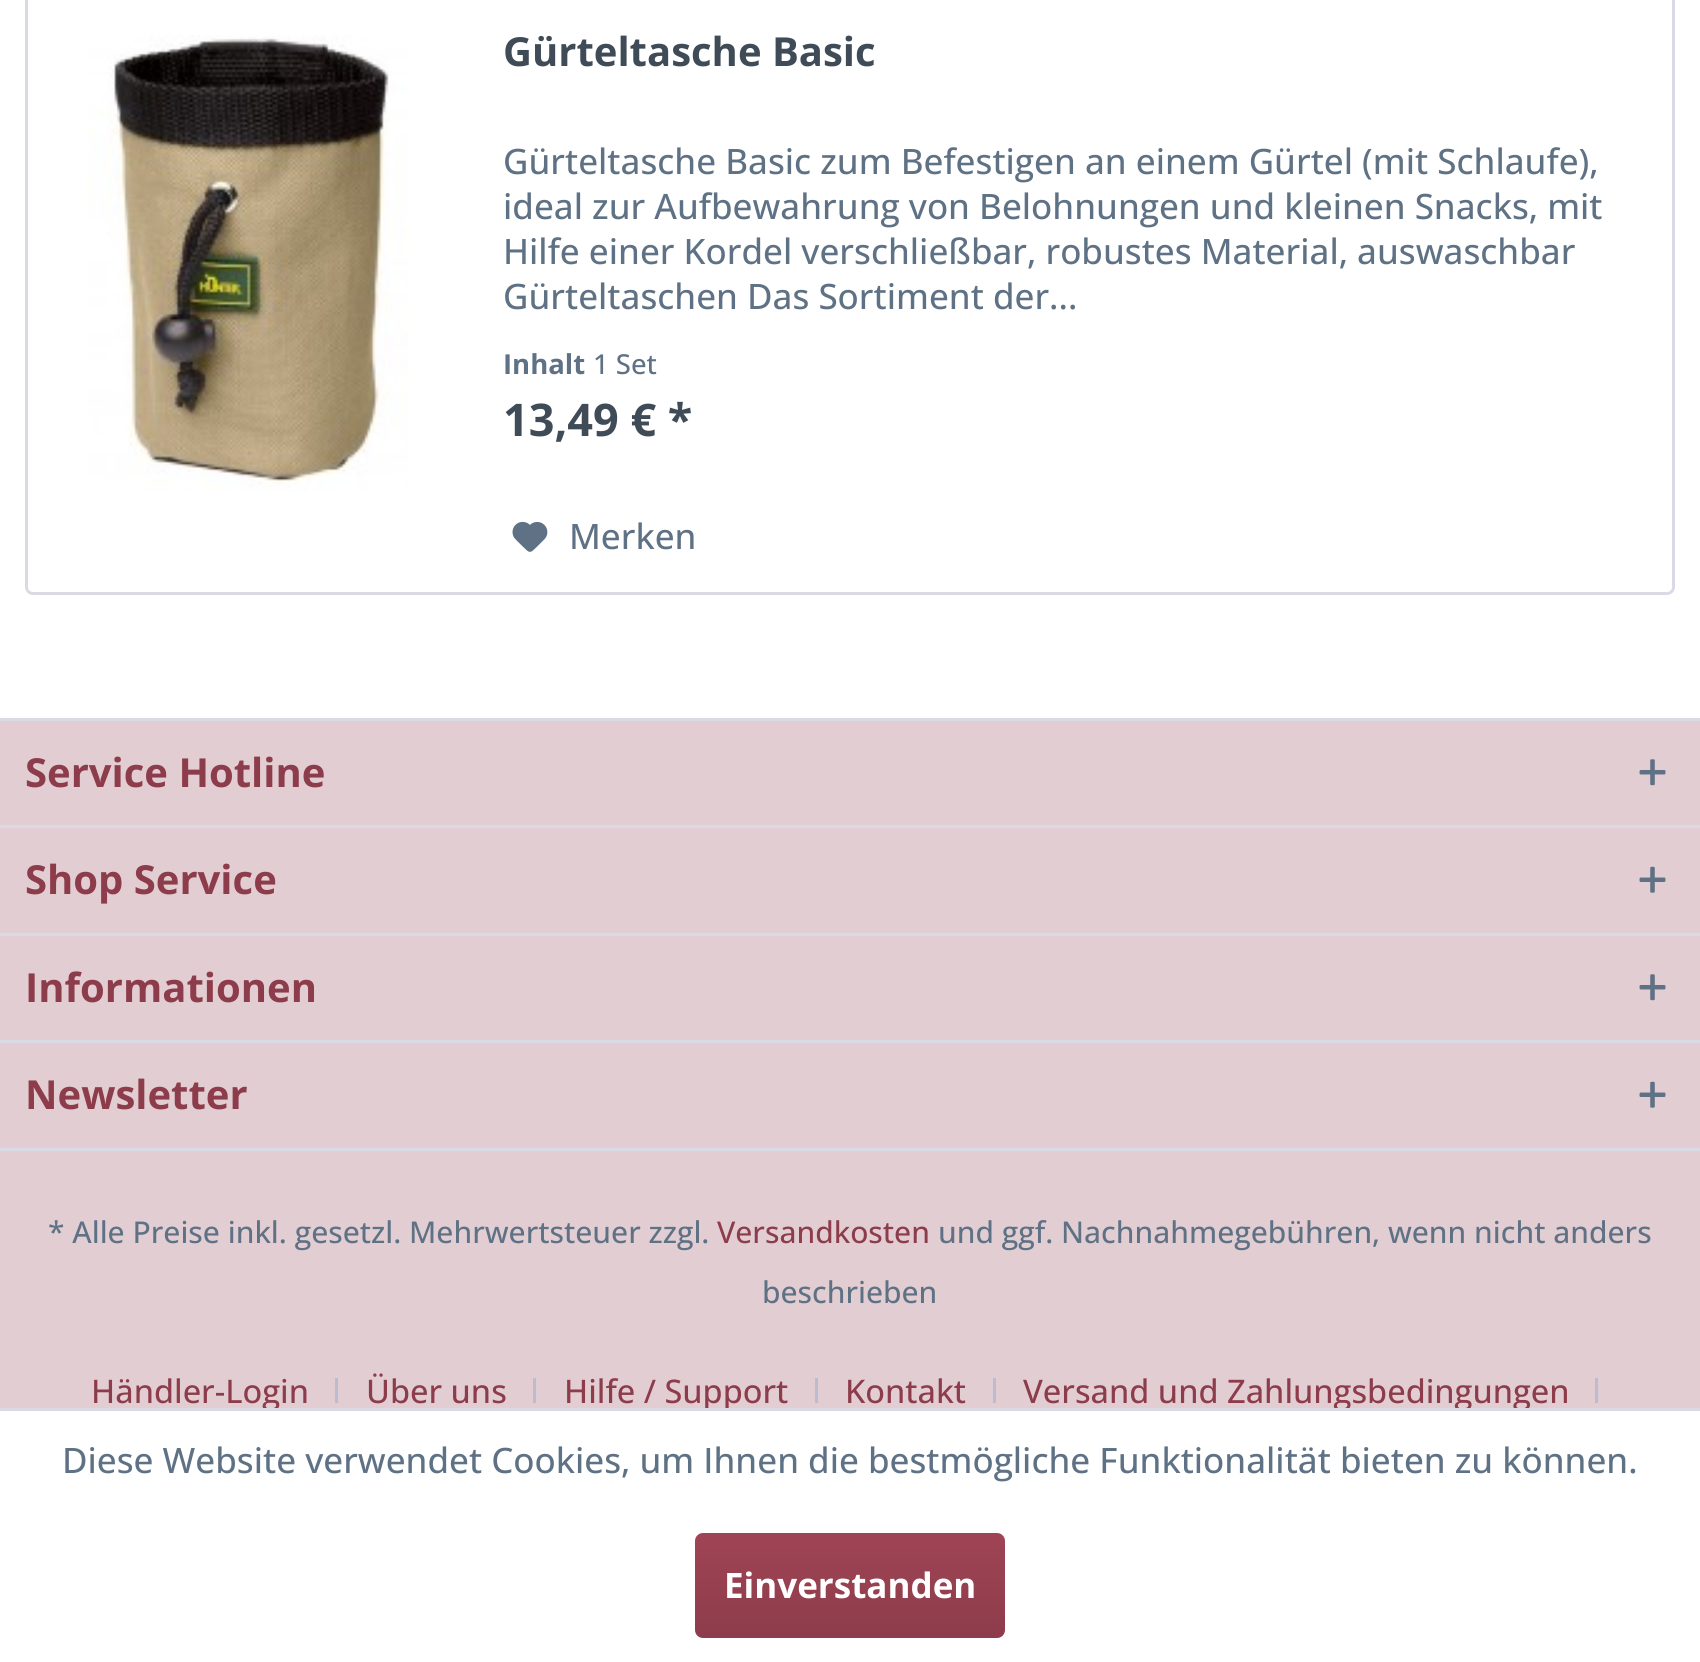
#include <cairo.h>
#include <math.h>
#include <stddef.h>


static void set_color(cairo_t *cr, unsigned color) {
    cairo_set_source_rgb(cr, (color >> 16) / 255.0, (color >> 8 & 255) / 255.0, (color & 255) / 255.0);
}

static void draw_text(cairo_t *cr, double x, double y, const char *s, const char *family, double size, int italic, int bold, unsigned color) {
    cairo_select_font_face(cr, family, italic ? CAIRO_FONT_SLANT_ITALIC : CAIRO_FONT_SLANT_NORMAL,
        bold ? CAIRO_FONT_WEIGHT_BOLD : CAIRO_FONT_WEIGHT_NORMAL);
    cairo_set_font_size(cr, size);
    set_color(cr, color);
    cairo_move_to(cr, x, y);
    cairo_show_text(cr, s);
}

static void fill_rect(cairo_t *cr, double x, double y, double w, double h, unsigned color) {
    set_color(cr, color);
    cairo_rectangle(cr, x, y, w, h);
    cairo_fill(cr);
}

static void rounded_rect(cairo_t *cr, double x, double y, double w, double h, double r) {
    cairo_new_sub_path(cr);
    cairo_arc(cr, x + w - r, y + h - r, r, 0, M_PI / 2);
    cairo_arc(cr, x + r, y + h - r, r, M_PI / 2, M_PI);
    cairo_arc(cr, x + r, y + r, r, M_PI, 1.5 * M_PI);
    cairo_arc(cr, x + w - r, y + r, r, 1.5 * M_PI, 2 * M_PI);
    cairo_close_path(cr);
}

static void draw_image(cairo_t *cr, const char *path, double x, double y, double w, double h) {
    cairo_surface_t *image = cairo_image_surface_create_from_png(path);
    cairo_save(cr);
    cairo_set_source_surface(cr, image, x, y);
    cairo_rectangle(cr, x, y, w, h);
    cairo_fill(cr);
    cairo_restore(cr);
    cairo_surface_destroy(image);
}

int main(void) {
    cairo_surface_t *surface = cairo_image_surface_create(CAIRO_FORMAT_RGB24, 1700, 1662);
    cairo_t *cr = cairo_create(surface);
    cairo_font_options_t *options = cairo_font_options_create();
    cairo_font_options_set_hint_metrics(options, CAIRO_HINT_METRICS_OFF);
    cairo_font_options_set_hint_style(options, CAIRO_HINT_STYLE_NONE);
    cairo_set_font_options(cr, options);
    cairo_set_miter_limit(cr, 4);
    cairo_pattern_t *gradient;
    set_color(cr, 0xFFFFFF);
    cairo_paint(cr);
    rounded_rect(cr, 26.5, -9.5, 1647, 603, 6.5);
    set_color(cr, 0xDADAE5);
    cairo_set_line_width(cr, 3);
    cairo_stroke(cr);
    draw_image(cr, "assets/img1.png", 88, 35, 320, 456);
    draw_text(cr, 503, 66, "Gürteltasche Basic", "Open Sans", 40, 0, 1, 0x3F4C58);
    draw_text(cr, 503, 174, "Gürteltasche Basic zum Befestigen an einem Gürtel (mit Schlaufe),", "Open Sans Medium", 35, 0, 0, 0x5F7285);
    draw_text(cr, 503, 219, "ideal zur Aufbewahrung von Belohnungen und kleinen Snacks, mit", "Open Sans Medium", 35, 0, 0, 0x5F7285);
    draw_text(cr, 503, 264, "Hilfe einer Kordel verschließbar, robustes Material, auswaschbar", "Open Sans Medium", 35, 0, 0, 0x5F7285);
    draw_text(cr, 503, 309, "Gürteltaschen Das Sortiment der...", "Open Sans Medium", 35, 0, 0, 0x5F7285);
    draw_text(cr, 503, 374, "Inhalt", "Open Sans", 27.5, 0, 1, 0x5F7285);
    draw_text(cr, 593, 374, "1 Set", "Open Sans Medium", 27.5, 0, 0, 0x5F7285);
    draw_text(cr, 503, 436, "13,49 € *", "Open Sans", 45, 0, 1, 0x3F4C58);
    draw_image(cr, "assets/img2.png", 512, 521, 36, 31);
    draw_text(cr, 569, 549, "Merken", "Open Sans Medium", 35, 0, 0, 0x5F7285);
    fill_rect(cr, 0, 721, 1700, 687, 0xE2CED2);
    fill_rect(cr, 0, 718, 1700, 3, 0xDADAE5);
    draw_text(cr, 25, 787, "Service Hotline", "Open Sans", 40, 0, 1, 0x8D3C4B);
    draw_image(cr, "assets/img3.png", 1639, 759, 27, 27);
    fill_rect(cr, 0, 825, 1700, 3, 0xDADAE5);
    draw_text(cr, 25, 894, "Shop Service", "Open Sans", 40, 0, 1, 0x8D3C4B);
    draw_image(cr, "assets/img4.png", 1639, 866, 27, 27);
    fill_rect(cr, 0, 933, 1700, 3, 0xDADAE5);
    draw_text(cr, 25, 1002, "Informationen", "Open Sans", 40, 0, 1, 0x8D3C4B);
    draw_image(cr, "assets/img3.png", 1639, 974, 27, 27);
    fill_rect(cr, 0, 1040, 1700, 3, 0xDADAE5);
    fill_rect(cr, 0, 1148, 1700, 3, 0xDADAE5);
    draw_text(cr, 25, 1109, "Newsletter", "Open Sans", 40, 0, 1, 0x8D3C4B);
    draw_image(cr, "assets/img4.png", 1639, 1081, 27, 27);
    draw_text(cr, 48, 1243, "* Alle Preise inkl. gesetzl. Mehrwertsteuer zzgl.", "Open Sans Medium", 30, 0, 0, 0x5F7285);
    draw_text(cr, 717, 1243, "Versandkosten", "Open Sans Medium", 30, 0, 0, 0x8D3C4B);
    draw_text(cr, 938, 1243, "und ggf. Nachnahmegebühren, wenn nicht anders", "Open Sans Medium", 30, 0, 0, 0x5F7285);
    draw_text(cr, 762, 1303, "beschrieben", "Open Sans Medium", 30, 0, 0, 0x5F7285);
    draw_text(cr, 91, 1403, "Händler-Login", "Open Sans Medium", 32.5, 0, 0, 0x8D3C4B);
    fill_rect(cr, 335, 1378, 3, 25, 0xBCBCD0);
    draw_text(cr, 366, 1403, "Über uns", "Open Sans Medium", 32.5, 0, 0, 0x8D3C4B);
    fill_rect(cr, 533, 1378, 3, 25, 0xBCBCD0);
    draw_text(cr, 564, 1403, "Hilfe / Support", "Open Sans Medium", 32.5, 0, 0, 0x8D3C4B);
    fill_rect(cr, 815, 1378, 3, 25, 0xBCBCD0);
    draw_text(cr, 845, 1403, "Kontakt", "Open Sans Medium", 32.5, 0, 0, 0x8D3C4B);
    fill_rect(cr, 993, 1378, 3, 25, 0xBCBCD0);
    draw_text(cr, 1023, 1403, "Versand und Zahlungsbedingungen", "Open Sans Medium", 32.5, 0, 0, 0x8D3C4B);
    fill_rect(cr, 1595, 1378, 3, 25, 0xBCBCD0);
    fill_rect(cr, 0, 1408, 1700, 3, 0xDADAE5);
    draw_text(cr, 62, 1473, "Diese Website verwendet Cookies, um Ihnen die bestmögliche Funktionalität bieten zu können.", "Open Sans Medium", 35, 0, 0, 0x5F7285);
    gradient = cairo_pattern_create_linear(850, 1533, 850, 1638);
    cairo_pattern_add_color_stop_rgba(gradient, 0, 0.624, 0.267, 0.333, 1);
    cairo_pattern_add_color_stop_rgba(gradient, 1, 0.553, 0.235, 0.294, 1);
    cairo_set_source(cr, gradient);
    cairo_pattern_destroy(gradient);
    rounded_rect(cr, 695, 1533, 310, 105, 8);
    cairo_fill(cr);
    draw_text(cr, 724, 1598, "Einverstanden", "Open Sans", 35, 0, 1, 0xFFFFFF);
    cairo_surface_write_to_png(surface, "output.png");
    cairo_font_options_destroy(options);
    cairo_destroy(cr);
    cairo_surface_destroy(surface);
    return 0;
}
